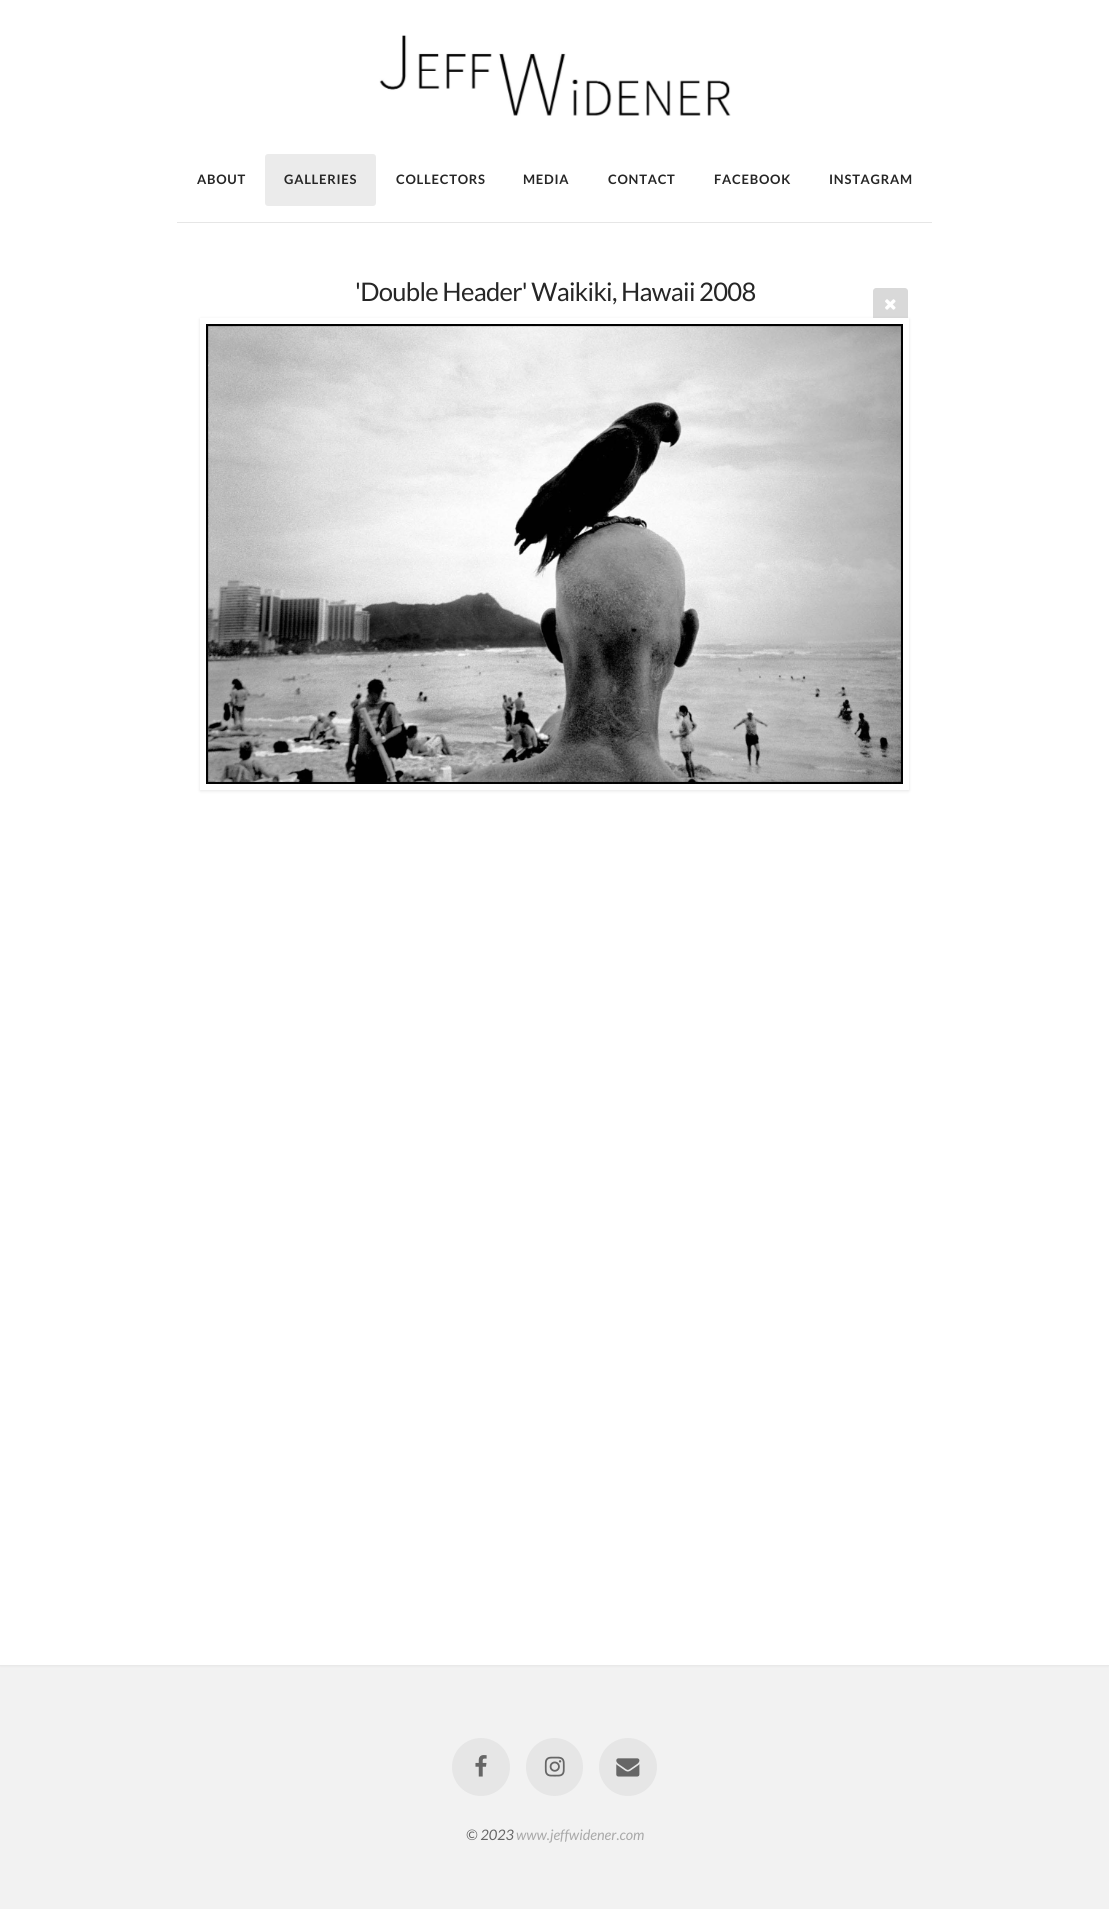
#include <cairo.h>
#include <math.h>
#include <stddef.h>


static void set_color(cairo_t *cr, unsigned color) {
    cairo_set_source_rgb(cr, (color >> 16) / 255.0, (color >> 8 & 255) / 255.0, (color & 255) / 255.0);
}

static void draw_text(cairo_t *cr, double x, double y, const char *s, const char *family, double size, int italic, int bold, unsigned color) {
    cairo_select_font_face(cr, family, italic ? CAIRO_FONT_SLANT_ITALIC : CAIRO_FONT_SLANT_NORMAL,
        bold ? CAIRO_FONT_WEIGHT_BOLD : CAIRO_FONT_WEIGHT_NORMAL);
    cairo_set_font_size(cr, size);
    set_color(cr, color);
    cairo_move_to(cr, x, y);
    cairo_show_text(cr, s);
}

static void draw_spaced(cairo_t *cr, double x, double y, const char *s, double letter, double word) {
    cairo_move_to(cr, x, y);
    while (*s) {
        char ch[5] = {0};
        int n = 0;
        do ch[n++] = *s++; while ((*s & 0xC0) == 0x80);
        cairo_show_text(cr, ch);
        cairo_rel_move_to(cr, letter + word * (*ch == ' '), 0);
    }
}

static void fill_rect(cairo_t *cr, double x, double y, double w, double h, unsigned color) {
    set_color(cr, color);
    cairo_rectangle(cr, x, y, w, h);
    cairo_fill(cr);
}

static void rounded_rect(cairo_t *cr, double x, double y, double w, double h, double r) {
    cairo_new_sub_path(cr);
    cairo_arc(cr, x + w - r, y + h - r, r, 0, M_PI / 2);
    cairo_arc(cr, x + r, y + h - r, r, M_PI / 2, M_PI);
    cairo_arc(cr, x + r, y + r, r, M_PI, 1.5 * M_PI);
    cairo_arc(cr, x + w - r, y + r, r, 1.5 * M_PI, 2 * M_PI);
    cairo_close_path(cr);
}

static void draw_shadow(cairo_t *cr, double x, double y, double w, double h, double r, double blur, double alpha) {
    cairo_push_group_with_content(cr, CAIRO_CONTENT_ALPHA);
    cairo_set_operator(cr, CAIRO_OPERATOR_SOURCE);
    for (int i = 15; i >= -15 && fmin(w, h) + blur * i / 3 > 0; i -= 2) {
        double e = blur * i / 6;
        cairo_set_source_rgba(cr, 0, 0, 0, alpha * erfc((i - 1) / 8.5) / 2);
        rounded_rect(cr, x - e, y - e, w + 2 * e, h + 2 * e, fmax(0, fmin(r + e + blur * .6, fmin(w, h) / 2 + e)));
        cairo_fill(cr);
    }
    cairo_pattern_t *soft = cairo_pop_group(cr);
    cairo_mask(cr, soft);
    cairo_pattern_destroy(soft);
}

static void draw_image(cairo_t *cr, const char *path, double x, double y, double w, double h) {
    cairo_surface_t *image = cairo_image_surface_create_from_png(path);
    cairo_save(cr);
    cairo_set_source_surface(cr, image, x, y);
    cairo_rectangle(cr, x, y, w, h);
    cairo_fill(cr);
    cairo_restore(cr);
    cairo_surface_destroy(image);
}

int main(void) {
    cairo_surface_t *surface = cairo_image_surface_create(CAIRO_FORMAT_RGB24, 1109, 1909);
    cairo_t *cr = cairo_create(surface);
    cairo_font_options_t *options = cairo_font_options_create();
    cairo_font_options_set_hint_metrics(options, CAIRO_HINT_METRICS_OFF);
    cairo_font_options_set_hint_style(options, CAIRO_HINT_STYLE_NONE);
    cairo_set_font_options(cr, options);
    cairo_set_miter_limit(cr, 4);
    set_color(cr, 0xF2F2F2);
    cairo_paint(cr);
    set_color(cr, 0x000000);
    draw_shadow(cr, 0, 0, 1109, 1665, 0, 1.5, 0.1);
    fill_rect(cr, 0, 0, 1109, 1665, 0xFFFFFF);
    draw_image(cr, "assets/img1.png", 379, 35, 352, 81);
    fill_rect(cr, 177, 222, 755, 1, 0xE6E6E6);
    cairo_select_font_face(cr, "Lato", CAIRO_FONT_SLANT_NORMAL, CAIRO_FONT_WEIGHT_BOLD);
    cairo_set_font_size(cr, 13);
    set_color(cr, 0x262626);
    draw_spaced(cr, 197, 184, "ABOUT", 0.75, 0);
    set_color(cr, 0xEBEBEB);
    rounded_rect(cr, 265, 154, 111, 52, 3);
    cairo_fill(cr);
    set_color(cr, 0x262626);
    draw_spaced(cr, 284, 184, "GALLERIES", 0.75, 0);
    draw_spaced(cr, 396, 184, "COLLECTORS", 0.75, 0);
    draw_spaced(cr, 523, 184, "MEDIA", 0.75, 0);
    draw_spaced(cr, 608, 184, "CONTACT", 0.75, 0);
    draw_spaced(cr, 714, 184, "FACEBOOK", 0.75, 0);
    draw_spaced(cr, 829, 184, "INSTAGRAM", 0.75, 0);
    cairo_select_font_face(cr, "Lato", CAIRO_FONT_SLANT_NORMAL, CAIRO_FONT_WEIGHT_NORMAL);
    cairo_set_font_size(cr, 25.6);
    draw_spaced(cr, 355, 301, "'Double Header' Waikiki, Hawaii 2008", -0.7, 0);
    set_color(cr, 0xD9D9D9);
    cairo_new_path(cr);
    cairo_move_to(cr, 876, 288);
    cairo_line_to(cr, 905, 288);
    cairo_curve_to(cr, 906.5, 288, 908, 289.5, 908, 291);
    cairo_line_to(cr, 908, 318);
    cairo_line_to(cr, 873, 318);
    cairo_line_to(cr, 873, 291);
    cairo_curve_to(cr, 873, 289.5, 874.5, 288, 876, 288);
    cairo_close_path(cr);
    cairo_fill(cr);
    draw_image(cr, "assets/img2.png", 885, 299, 11, 11);
    cairo_save(cr);
    cairo_set_fill_rule(cr, CAIRO_FILL_RULE_EVEN_ODD);
    cairo_new_path(cr);
    cairo_move_to(cr, 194, 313);
    cairo_line_to(cr, 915, 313);
    cairo_line_to(cr, 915, 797);
    cairo_line_to(cr, 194, 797);
    cairo_close_path(cr);
    cairo_move_to(cr, 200, 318);
    cairo_line_to(cr, 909, 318);
    cairo_line_to(cr, 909, 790);
    cairo_line_to(cr, 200, 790);
    cairo_close_path(cr);
    cairo_clip(cr);
    set_color(cr, 0x000000);
    draw_shadow(cr, 200, 319, 709, 472, 0, 1.5, 0.1);
    cairo_restore(cr);
    draw_image(cr, "assets/img3.png", 206, 324, 697, 460);
    set_color(cr, 0xE6E6E6);
    cairo_arc(cr, 481, 1767, 29, 0, 2 * M_PI);
    cairo_fill(cr);
    draw_image(cr, "assets/img4.png", 475, 1755, 12, 22);
    rounded_rect(cr, 526, 1738, 57, 58, 28.5);
    cairo_fill(cr);
    draw_image(cr, "assets/img5.png", 544, 1756, 21, 21);
    cairo_arc(cr, 628, 1767, 29, 0, 2 * M_PI);
    cairo_fill(cr);
    draw_image(cr, "assets/img6.png", 616, 1758, 24, 19);
    draw_text(cr, 466, 1840, "© 2023", "Lato", 14.5, 1, 0, 0x666666);
    draw_text(cr, 516, 1840, "www.jeffwidener.com", "Lato", 14.5, 1, 0, 0xA9A9A9);
    cairo_surface_write_to_png(surface, "output.png");
    cairo_font_options_destroy(options);
    cairo_destroy(cr);
    cairo_surface_destroy(surface);
    return 0;
}
